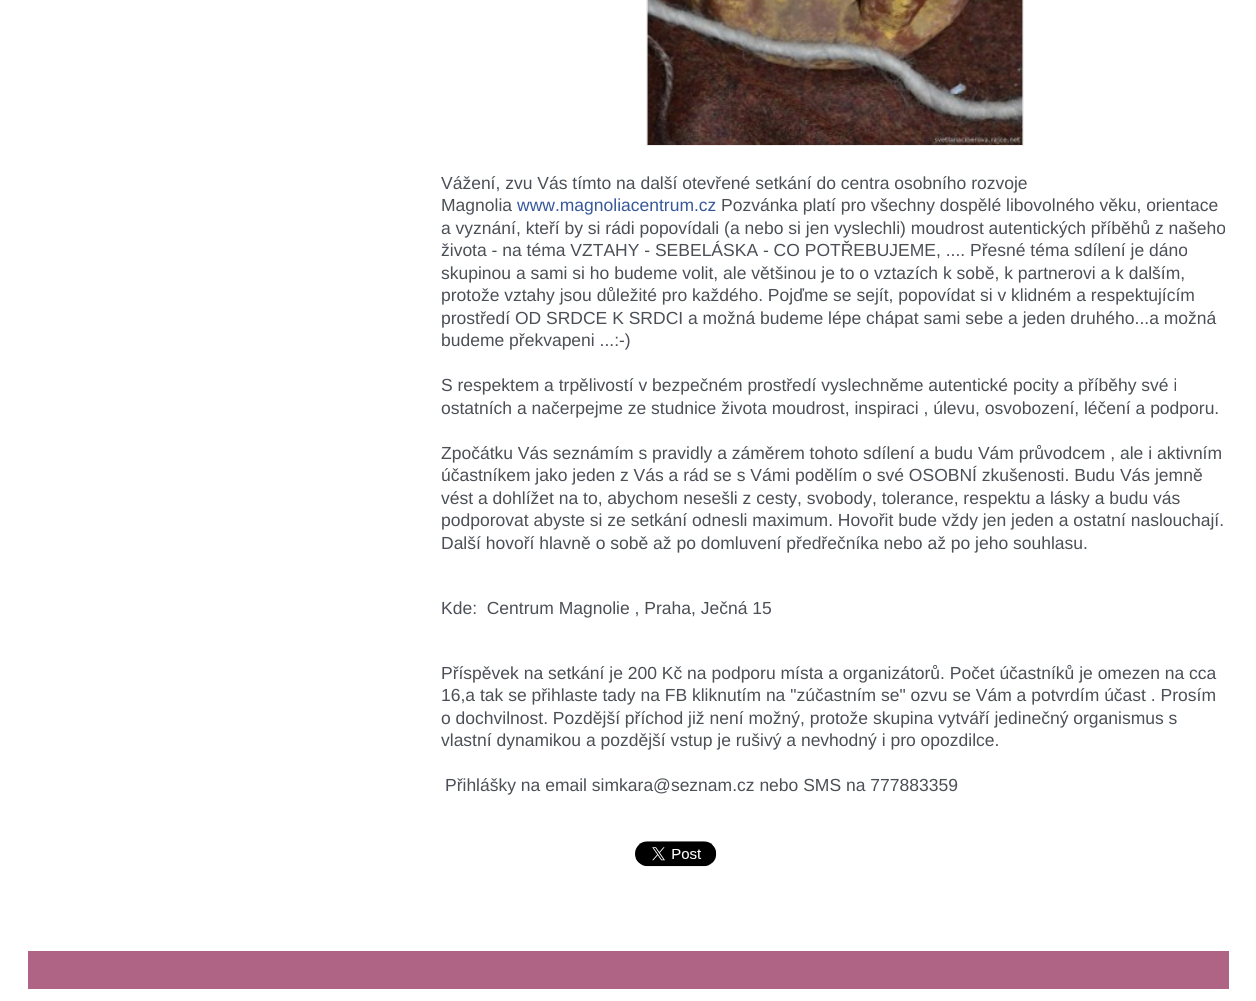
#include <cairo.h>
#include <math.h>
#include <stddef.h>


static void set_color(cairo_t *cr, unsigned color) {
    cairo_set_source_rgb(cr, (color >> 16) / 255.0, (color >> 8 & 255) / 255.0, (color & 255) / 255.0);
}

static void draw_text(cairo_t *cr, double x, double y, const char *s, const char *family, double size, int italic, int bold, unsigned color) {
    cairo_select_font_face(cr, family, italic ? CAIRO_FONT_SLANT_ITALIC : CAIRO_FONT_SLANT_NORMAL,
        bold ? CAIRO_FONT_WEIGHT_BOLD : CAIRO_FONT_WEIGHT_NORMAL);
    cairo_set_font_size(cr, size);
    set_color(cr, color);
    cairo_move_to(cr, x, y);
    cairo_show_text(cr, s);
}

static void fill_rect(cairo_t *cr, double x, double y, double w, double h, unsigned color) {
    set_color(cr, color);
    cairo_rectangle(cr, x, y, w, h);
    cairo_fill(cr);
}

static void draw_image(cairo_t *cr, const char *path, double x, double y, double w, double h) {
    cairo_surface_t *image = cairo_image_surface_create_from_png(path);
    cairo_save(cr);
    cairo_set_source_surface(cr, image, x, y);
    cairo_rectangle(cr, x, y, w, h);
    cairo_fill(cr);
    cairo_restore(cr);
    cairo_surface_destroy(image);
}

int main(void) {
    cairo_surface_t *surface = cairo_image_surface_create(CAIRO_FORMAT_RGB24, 1256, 1001);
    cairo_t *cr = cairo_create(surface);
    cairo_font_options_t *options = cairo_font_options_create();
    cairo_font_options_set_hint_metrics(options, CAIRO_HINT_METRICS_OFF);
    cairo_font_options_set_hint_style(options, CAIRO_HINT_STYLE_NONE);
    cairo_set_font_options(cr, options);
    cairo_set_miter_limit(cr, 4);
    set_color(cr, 0xFFFFFF);
    cairo_paint(cr);
    cairo_rectangle(cr, 646.5, -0.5, 377, 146);
    set_color(cr, 0xEEEEEE);
    cairo_set_line_width(cr, 1);
    cairo_stroke(cr);
    draw_image(cr, "assets/img1.png", 647, 0, 376, 145);
    draw_text(cr, 441, 189, "Vážení, zvu Vás tímto na další otevřené setkání do centra osobního rozvoje", "Liberation Sans", 17.5, 0, 0, 0x4B4F56);
    draw_text(cr, 441, 211, "Magnolia", "Liberation Sans", 17.5, 0, 0, 0x4B4F56);
    draw_text(cr, 517, 211, "www.magnoliacentrum.cz", "Liberation Sans", 17.5, 0, 0, 0x365899);
    draw_text(cr, 721, 211, "Pozvánka platí pro všechny dospělé libovolného věku, orientace", "Liberation Sans", 17.5, 0, 0, 0x4B4F56);
    draw_text(cr, 441, 234, "a vyznání, kteří by si rádi popovídali (a nebo si jen vyslechli) moudrost autentických příběhů z našeho", "Liberation Sans", 17.5, 0, 0, 0x4B4F56);
    draw_text(cr, 441, 256, "života - na téma VZTAHY - SEBELÁSKA - CO POTŘEBUJEME, .... Přesné téma sdílení je dáno", "Liberation Sans", 17.5, 0, 0, 0x4B4F56);
    draw_text(cr, 441, 279, "skupinou a sami si ho budeme volit, ale většinou je to o vztazích k sobě, k partnerovi a k dalším,", "Liberation Sans", 17.5, 0, 0, 0x4B4F56);
    draw_text(cr, 441, 301, "protože vztahy jsou důležité pro každého. Pojďme se sejít, popovídat si v klidném a respektujícím", "Liberation Sans", 17.5, 0, 0, 0x4B4F56);
    draw_text(cr, 441, 324, "prostředí OD SRDCE K SRDCI a možná budeme lépe chápat sami sebe a jeden druhého...a možná", "Liberation Sans", 17.5, 0, 0, 0x4B4F56);
    draw_text(cr, 441, 346, "budeme překvapeni ...:-)", "Liberation Sans", 17.5, 0, 0, 0x4B4F56);
    draw_text(cr, 441, 391, "S respektem a trpělivostí v bezpečném prostředí vyslechněme autentické pocity a příběhy své i", "Liberation Sans", 17.5, 0, 0, 0x4B4F56);
    draw_text(cr, 441, 414, "ostatních a načerpejme ze studnice života moudrost, inspiraci , úlevu, osvobození, léčení a podporu.", "Liberation Sans", 17.5, 0, 0, 0x4B4F56);
    draw_text(cr, 441, 459, "Zpočátku Vás seznámím s pravidly a záměrem tohoto sdílení a budu Vám průvodcem , ale i aktivním", "Liberation Sans", 17.5, 0, 0, 0x4B4F56);
    draw_text(cr, 441, 481, "účastníkem jako jeden z Vás a rád se s Vámi podělím o své OSOBNÍ zkušenosti. Budu Vás jemně", "Liberation Sans", 17.5, 0, 0, 0x4B4F56);
    draw_text(cr, 441, 504, "vést a dohlížet na to, abychom nesešli z cesty, svobody, tolerance, respektu a lásky a budu vás", "Liberation Sans", 17.5, 0, 0, 0x4B4F56);
    draw_text(cr, 441, 526, "podporovat abyste si ze setkání odnesli maximum. Hovořit bude vždy jen jeden a ostatní naslouchají.", "Liberation Sans", 17.5, 0, 0, 0x4B4F56);
    draw_text(cr, 441, 549, "Další hovoří hlavně o sobě až po domluvení předřečníka nebo až po jeho souhlasu.", "Liberation Sans", 17.5, 0, 0, 0x4B4F56);
    draw_text(cr, 441, 614, "Kde:  Centrum Magnolie , Praha, Ječná 15", "Liberation Sans", 17.5, 0, 0, 0x4B4F56);
    draw_text(cr, 441, 679, "Příspěvek na setkání je 200 Kč na podporu místa a organizátorů. Počet účastníků je omezen na cca", "Liberation Sans", 17.5, 0, 0, 0x4B4F56);
    draw_text(cr, 441, 701, "16,a tak se přihlaste tady na FB kliknutím na \"zúčastním se\" ozvu se Vám a potvrdím účast . Prosím", "Liberation Sans", 17.5, 0, 0, 0x4B4F56);
    draw_text(cr, 441, 724, "o dochvilnost. Pozdější příchod již není možný, protože skupina vytváří jedinečný organismus s", "Liberation Sans", 17.5, 0, 0, 0x4B4F56);
    draw_text(cr, 441, 746, "vlastní dynamikou a pozdější vstup je rušivý a nevhodný i pro opozdilce.", "Liberation Sans", 17.5, 0, 0, 0x4B4F56);
    draw_text(cr, 445, 791, "Přihlášky na email simkara@seznam.cz nebo SMS na 777883359", "Liberation Sans", 17.5, 0, 0, 0x4B4F56);
    draw_image(cr, "assets/img2.png", 635, 841, 82, 26);
    fill_rect(cr, 28, 951, 1201, 38, 0xAF6486);
    cairo_surface_write_to_png(surface, "output.png");
    cairo_font_options_destroy(options);
    cairo_destroy(cr);
    cairo_surface_destroy(surface);
    return 0;
}
